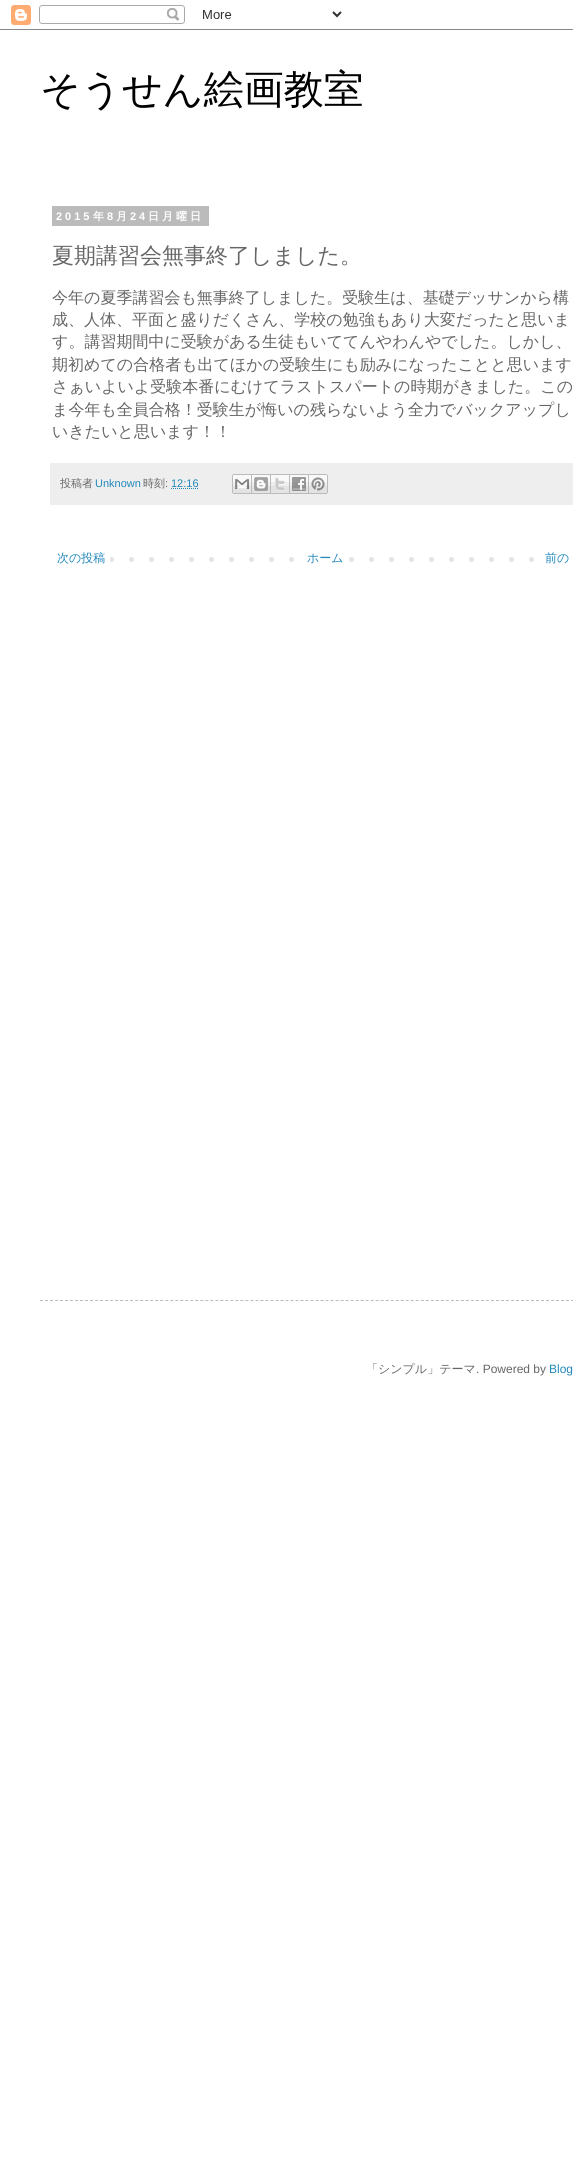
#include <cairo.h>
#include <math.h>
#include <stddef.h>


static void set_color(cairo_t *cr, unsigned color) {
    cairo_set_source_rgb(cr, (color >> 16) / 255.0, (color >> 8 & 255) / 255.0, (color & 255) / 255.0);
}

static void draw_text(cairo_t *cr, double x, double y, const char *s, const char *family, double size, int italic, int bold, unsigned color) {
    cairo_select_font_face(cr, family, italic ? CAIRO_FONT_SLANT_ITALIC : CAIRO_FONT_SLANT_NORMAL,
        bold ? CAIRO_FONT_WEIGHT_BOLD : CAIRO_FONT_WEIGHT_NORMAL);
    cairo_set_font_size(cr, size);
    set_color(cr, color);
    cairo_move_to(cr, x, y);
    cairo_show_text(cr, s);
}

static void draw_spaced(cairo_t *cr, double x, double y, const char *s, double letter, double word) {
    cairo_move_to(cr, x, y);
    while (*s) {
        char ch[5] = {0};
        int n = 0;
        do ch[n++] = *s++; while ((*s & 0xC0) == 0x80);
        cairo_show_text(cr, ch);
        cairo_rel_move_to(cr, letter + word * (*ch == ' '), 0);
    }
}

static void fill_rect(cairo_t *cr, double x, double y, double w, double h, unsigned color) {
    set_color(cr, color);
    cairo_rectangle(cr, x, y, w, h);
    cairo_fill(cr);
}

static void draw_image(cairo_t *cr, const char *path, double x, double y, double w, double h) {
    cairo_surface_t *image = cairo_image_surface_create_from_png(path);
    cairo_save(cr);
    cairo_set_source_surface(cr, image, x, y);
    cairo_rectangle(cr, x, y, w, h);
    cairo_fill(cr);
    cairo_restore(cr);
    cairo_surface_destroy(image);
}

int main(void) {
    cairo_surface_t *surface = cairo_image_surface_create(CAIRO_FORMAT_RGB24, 573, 2157);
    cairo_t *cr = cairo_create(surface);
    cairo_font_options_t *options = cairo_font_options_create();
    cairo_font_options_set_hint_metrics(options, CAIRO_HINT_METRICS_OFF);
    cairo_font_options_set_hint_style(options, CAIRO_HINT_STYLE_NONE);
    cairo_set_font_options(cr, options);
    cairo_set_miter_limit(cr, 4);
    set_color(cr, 0xFFFFFF);
    cairo_paint(cr);
    draw_image(cr, "assets/img1.png", 0, 5, 573, 25);
    draw_text(cr, 40, 103, "そうせん絵画教室", "WenQuanYi Zen Hei Medium", 40, 0, 0, 0x000000);
    fill_rect(cr, 52, 206, 157, 20, 0xBBBBBB);
    cairo_select_font_face(cr, "Liberation Sans", CAIRO_FONT_SLANT_NORMAL, CAIRO_FONT_WEIGHT_BOLD);
    cairo_set_font_size(cr, 11);
    set_color(cr, 0xFFFFFF);
    draw_spaced(cr, 56, 220, "2015", 3, 0);
    cairo_select_font_face(cr, "WenQuanYi Zen Hei", CAIRO_FONT_SLANT_NORMAL, CAIRO_FONT_WEIGHT_BOLD);
    draw_spaced(cr, 93, 220, "年", 3, 0);
    cairo_select_font_face(cr, "Liberation Sans", CAIRO_FONT_SLANT_NORMAL, CAIRO_FONT_WEIGHT_BOLD);
    draw_spaced(cr, 107, 220, "8", 3, 0);
    cairo_select_font_face(cr, "WenQuanYi Zen Hei", CAIRO_FONT_SLANT_NORMAL, CAIRO_FONT_WEIGHT_BOLD);
    draw_spaced(cr, 116, 220, "月", 3, 0);
    cairo_select_font_face(cr, "Liberation Sans", CAIRO_FONT_SLANT_NORMAL, CAIRO_FONT_WEIGHT_BOLD);
    draw_spaced(cr, 130, 220, "24", 3, 0);
    cairo_select_font_face(cr, "WenQuanYi Zen Hei", CAIRO_FONT_SLANT_NORMAL, CAIRO_FONT_WEIGHT_BOLD);
    draw_spaced(cr, 148, 220, "日月曜日", 3, 0);
    draw_text(cr, 52, 263, "夏期講習会無事終了しました。", "WenQuanYi Zen Hei Medium", 22, 0, 0, 0x666666);
    draw_text(cr, 52, 303, "今年の夏季講習会も無事終了しました。受験生は、基礎デッサンから構", "WenQuanYi Zen Hei Medium", 16, 0, 0, 0x666666);
    draw_text(cr, 52, 325, "成、人体、平面と盛りだくさん、学校の勉強もあり大変だったと思いま", "WenQuanYi Zen Hei Medium", 16, 0, 0, 0x666666);
    draw_text(cr, 52, 347, "す。講習期間中に受験がある生徒もいててんやわんやでした。しかし、", "WenQuanYi Zen Hei Medium", 16, 0, 0, 0x666666);
    draw_text(cr, 52, 370, "期初めての合格者も出てほかの受験生にも励みになったことと思います", "WenQuanYi Zen Hei Medium", 16, 0, 0, 0x666666);
    draw_text(cr, 52, 392, "さぁいよいよ受験本番にむけてラストスパートの時期がきました。この", "WenQuanYi Zen Hei Medium", 16, 0, 0, 0x666666);
    draw_text(cr, 52, 415, "ま今年も全員合格！受験生が悔いの残らないよう全力でバックアップし", "WenQuanYi Zen Hei Medium", 16, 0, 0, 0x666666);
    draw_text(cr, 52, 437, "いきたいと思います！！", "WenQuanYi Zen Hei Medium", 16, 0, 0, 0x666666);
    fill_rect(cr, 50, 463, 523, 42, 0xEEEEEE);
    draw_text(cr, 60, 487, "投稿者", "WenQuanYi Zen Hei Medium", 11, 0, 0, 0x666666);
    draw_text(cr, 95, 487, "Unknown", "Liberation Sans", 11, 0, 0, 0x2288BB);
    draw_text(cr, 143, 487, "時刻", "WenQuanYi Zen Hei Medium", 11, 0, 0, 0x666666);
    draw_text(cr, 165, 487, ":", "Liberation Sans", 11, 0, 0, 0x666666);
    draw_text(cr, 171, 487, "12:16", "Liberation Sans", 11, 0, 0, 0x2288BB);
    cairo_new_path(cr);
    cairo_move_to(cr, 171, 488.5);
    cairo_line_to(cr, 198, 488.5);
    cairo_set_line_width(cr, 1);
    cairo_set_dash(cr, (double[]){1, 1}, 2, 0);
    cairo_stroke(cr);
    draw_image(cr, "assets/img2.png", 232, 474, 20, 20);
    draw_image(cr, "assets/img3.png", 252, 474, 19, 20);
    draw_image(cr, "assets/img4.png", 271, 474, 19, 20);
    draw_image(cr, "assets/img5.png", 290, 474, 19, 20);
    draw_image(cr, "assets/img6.png", 309, 474, 19, 20);
    draw_image(cr, "assets/img7.png", 110, 557, 424, 5);
    draw_text(cr, 57, 562, "次の投稿", "WenQuanYi Zen Hei Medium", 12, 0, 0, 0x2288BB);
    fill_rect(cr, 309, 557, 26, 5, 0xFFFFFF);
    draw_text(cr, 307, 562, "ホーム", "WenQuanYi Zen Hei Medium", 12, 0, 0, 0x2288BB);
    draw_text(cr, 545, 562, "前の", "WenQuanYi Zen Hei Medium", 12, 0, 0, 0x2288BB);
    cairo_new_path(cr);
    cairo_move_to(cr, 40, 1300.5);
    cairo_line_to(cr, 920, 1300.5);
    set_color(cr, 0xBBBBBB);
    cairo_set_dash(cr, (double[]){3, 2.01}, 2, 0);
    cairo_stroke(cr);
    draw_text(cr, 366, 1373, "「シンプル」テーマ", "WenQuanYi Zen Hei Medium", 12, 0, 0, 0x666666);
    draw_text(cr, 476, 1373, ". Powered by", "Liberation Sans", 12, 0, 0, 0x666666);
    draw_text(cr, 549, 1373, "Blog", "Liberation Sans", 12, 0, 0, 0x2288BB);
    cairo_surface_write_to_png(surface, "output.png");
    cairo_font_options_destroy(options);
    cairo_destroy(cr);
    cairo_surface_destroy(surface);
    return 0;
}
